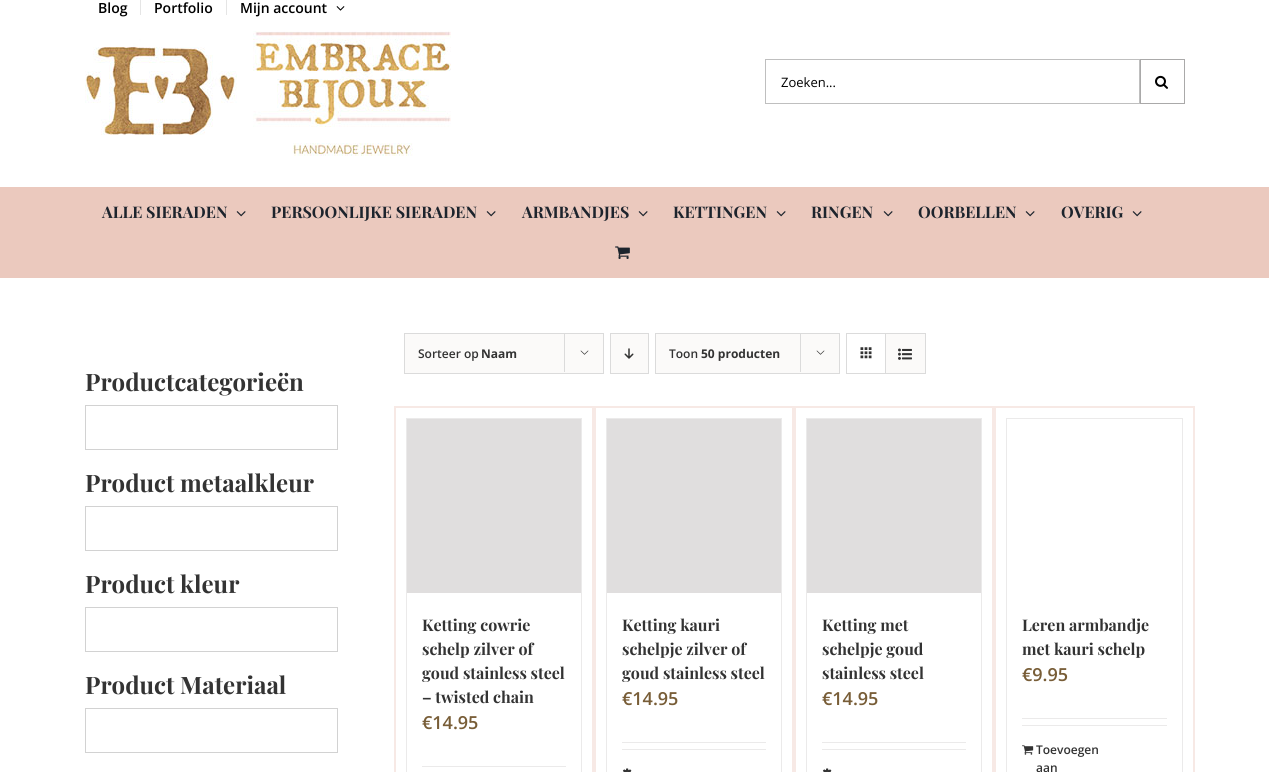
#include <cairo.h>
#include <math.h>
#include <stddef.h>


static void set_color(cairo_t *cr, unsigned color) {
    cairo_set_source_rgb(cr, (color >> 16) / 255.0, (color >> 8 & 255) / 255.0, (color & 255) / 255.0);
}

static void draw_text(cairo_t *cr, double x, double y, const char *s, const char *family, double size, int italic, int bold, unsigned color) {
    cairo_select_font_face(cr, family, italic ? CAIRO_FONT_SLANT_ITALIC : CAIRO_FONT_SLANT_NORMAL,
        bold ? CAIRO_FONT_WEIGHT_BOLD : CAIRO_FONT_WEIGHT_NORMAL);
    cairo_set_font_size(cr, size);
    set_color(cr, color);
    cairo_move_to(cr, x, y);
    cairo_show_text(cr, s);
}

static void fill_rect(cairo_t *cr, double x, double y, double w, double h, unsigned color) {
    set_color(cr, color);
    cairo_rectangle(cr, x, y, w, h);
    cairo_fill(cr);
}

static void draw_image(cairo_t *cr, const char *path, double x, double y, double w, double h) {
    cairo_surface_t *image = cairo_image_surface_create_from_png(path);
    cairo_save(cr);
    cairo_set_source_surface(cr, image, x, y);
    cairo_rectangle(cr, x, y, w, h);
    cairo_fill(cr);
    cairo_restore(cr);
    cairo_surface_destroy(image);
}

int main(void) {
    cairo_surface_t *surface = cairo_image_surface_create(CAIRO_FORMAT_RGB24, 1269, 772);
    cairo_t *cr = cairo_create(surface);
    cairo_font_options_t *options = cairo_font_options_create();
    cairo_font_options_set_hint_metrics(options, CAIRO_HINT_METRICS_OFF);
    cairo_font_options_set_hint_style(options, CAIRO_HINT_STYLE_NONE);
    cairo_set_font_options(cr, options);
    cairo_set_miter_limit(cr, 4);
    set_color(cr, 0xFFFFFF);
    cairo_paint(cr);
    draw_text(cr, 98, 13, "Blog", "Open Sans SemiBold", 14, 0, 0, 0x000000);
    fill_rect(cr, 140, 0, 1, 15, 0xE5E5E5);
    draw_text(cr, 154, 13, "Portfolio", "Open Sans SemiBold", 14, 0, 0, 0x000000);
    fill_rect(cr, 226, 0, 1, 15, 0xE5E5E5);
    draw_text(cr, 240, 13, "Mijn account", "Open Sans SemiBold", 14, 0, 0, 0x000000);
    draw_image(cr, "assets/img1.png", 336, 6, 9, 5);
    draw_image(cr, "assets/img2.png", 85, 31, 366, 125);
    cairo_rectangle(cr, 765.5, 59.5, 374, 44);
    set_color(cr, 0xBFBFBF);
    cairo_set_line_width(cr, 1);
    cairo_stroke(cr);
    draw_text(cr, 781, 87, "Zoeken...", "Open Sans", 13, 0, 0, 0x000000);
    cairo_rectangle(cr, 1140.5, 59.5, 44, 44);
    set_color(cr, 0xAAA9A9);
    cairo_stroke(cr);
    draw_image(cr, "assets/img3.png", 1155, 75, 13, 14);
    fill_rect(cr, 0, 187, 1269, 91, 0xEBC9BE);
    draw_text(cr, 102, 218, "ALLE SIERADEN", "Playfair Display", 16, 0, 1, 0x1D242D);
    draw_image(cr, "assets/img4.png", 236, 211, 10, 6);
    draw_text(cr, 271, 218, "PERSOONLIJKE SIERADEN", "Playfair Display", 16, 0, 1, 0x1D242D);
    draw_image(cr, "assets/img4.png", 486, 211, 10, 6);
    draw_text(cr, 522, 218, "ARMBANDJES", "Playfair Display", 16, 0, 1, 0x1D242D);
    draw_image(cr, "assets/img4.png", 638, 211, 10, 6);
    draw_text(cr, 673, 218, "KETTINGEN", "Playfair Display", 16, 0, 1, 0x1D242D);
    draw_image(cr, "assets/img4.png", 776, 211, 10, 6);
    draw_text(cr, 811, 218, "RINGEN", "Playfair Display", 16, 0, 1, 0x1D242D);
    draw_image(cr, "assets/img4.png", 883, 211, 10, 6);
    draw_text(cr, 918, 218, "OORBELLEN", "Playfair Display", 16, 0, 1, 0x1D242D);
    draw_image(cr, "assets/img4.png", 1025, 211, 10, 6);
    draw_text(cr, 1061, 218, "OVERIG", "Playfair Display", 16, 0, 1, 0x1D242D);
    draw_image(cr, "assets/img4.png", 1132, 211, 10, 6);
    draw_image(cr, "assets/img5.png", 615, 246, 15, 13);
    draw_text(cr, 85, 391, "Productcategorieën", "Playfair Display", 24, 0, 1, 0x333333);
    cairo_rectangle(cr, 85.5, 405.5, 252, 44);
    set_color(cr, 0xD2D2D2);
    cairo_stroke(cr);
    draw_text(cr, 85, 492, "Product metaalkleur", "Playfair Display", 24, 0, 1, 0x333333);
    cairo_rectangle(cr, 85.5, 506.5, 252, 44);
    set_color(cr, 0xD2D2D2);
    cairo_stroke(cr);
    draw_text(cr, 85, 593, "Product kleur", "Playfair Display", 24, 0, 1, 0x333333);
    cairo_rectangle(cr, 85.5, 607.5, 252, 44);
    set_color(cr, 0xD2D2D2);
    cairo_stroke(cr);
    draw_text(cr, 85, 694, "Product Materiaal", "Playfair Display", 24, 0, 1, 0x333333);
    cairo_rectangle(cr, 85.5, 708.5, 252, 44);
    set_color(cr, 0xD2D2D2);
    cairo_stroke(cr);
    set_color(cr, 0xFBFAF9);
    cairo_rectangle(cr, 404.5, 333.5, 199, 40);
    cairo_fill_preserve(cr);
    set_color(cr, 0xDBDBDB);
    cairo_stroke(cr);
    draw_text(cr, 418, 358, "Sorteer op", "Open Sans SemiBold", 12, 0, 0, 0x333333);
    draw_text(cr, 481, 358, "Naam", "Open Sans", 12, 0, 1, 0x333333);
    fill_rect(cr, 564, 333, 1, 39, 0xDBDBDB);
    draw_image(cr, "assets/img6.png", 580, 350, 9, 5);
    set_color(cr, 0xFBFAF9);
    cairo_rectangle(cr, 610.5, 333.5, 38, 40);
    cairo_fill_preserve(cr);
    set_color(cr, 0xDBDBDB);
    cairo_stroke(cr);
    draw_image(cr, "assets/img7.png", 624, 348, 10, 11);
    set_color(cr, 0xFBFAF9);
    cairo_rectangle(cr, 655.5, 333.5, 184, 40);
    cairo_fill_preserve(cr);
    set_color(cr, 0xDBDBDB);
    cairo_stroke(cr);
    draw_text(cr, 669, 358, "Toon", "Open Sans SemiBold", 12, 0, 0, 0x333333);
    draw_text(cr, 701, 358, "50 producten", "Open Sans", 12, 0, 1, 0x333333);
    fill_rect(cr, 800, 333, 1, 39, 0xDBDBDB);
    draw_image(cr, "assets/img6.png", 816, 350, 9, 5);
    cairo_rectangle(cr, 846.5, 333.5, 79, 40);
    cairo_stroke(cr);
    fill_rect(cr, 885, 334, 1, 39, 0xDBDBDB);
    draw_image(cr, "assets/img8.png", 860, 347, 12, 12);
    fill_rect(cr, 886, 334, 39, 39, 0xFBFAF9);
    draw_image(cr, "assets/img9.png", 898, 348, 14, 12);
    cairo_rectangle(cr, 395, 407, 198, 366);
    set_color(cr, 0xF7E9E5);
    cairo_set_line_width(cr, 2);
    cairo_stroke(cr);
    fill_rect(cr, 406, 418, 176, 1, 0xEBEAEA);
    fill_rect(cr, 581, 418, 1, 354, 0xEBEAEA);
    fill_rect(cr, 406, 418, 1, 354, 0xEBEAEA);
    fill_rect(cr, 407, 419, 174, 174, 0xE0DEDE);
    draw_text(cr, 422, 631, "Ketting cowrie", "Playfair Display", 16, 0, 1, 0x333333);
    draw_text(cr, 422, 655, "schelp zilver of", "Playfair Display", 16, 0, 1, 0x333333);
    draw_text(cr, 422, 679, "goud stainless steel", "Playfair Display", 16, 0, 1, 0x333333);
    draw_text(cr, 422, 703, "– twisted chain", "Playfair Display", 16, 0, 1, 0x333333);
    draw_text(cr, 422, 729, "€14.95", "Open Sans SemiBold", 18, 0, 0, 0x785D37);
    fill_rect(cr, 422, 766, 144, 1, 0xEBEAEA);
    cairo_rectangle(cr, 595, 407, 198, 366);
    set_color(cr, 0xF7E9E5);
    cairo_stroke(cr);
    fill_rect(cr, 606, 418, 176, 1, 0xEBEAEA);
    fill_rect(cr, 781, 418, 1, 354, 0xEBEAEA);
    fill_rect(cr, 606, 418, 1, 354, 0xEBEAEA);
    fill_rect(cr, 607, 419, 174, 174, 0xE0DEDE);
    draw_text(cr, 622, 631, "Ketting kauri", "Playfair Display", 16, 0, 1, 0x333333);
    draw_text(cr, 622, 655, "schelpje zilver of", "Playfair Display", 16, 0, 1, 0x333333);
    draw_text(cr, 622, 679, "goud stainless steel", "Playfair Display", 16, 0, 1, 0x333333);
    draw_text(cr, 622, 705, "€14.95", "Open Sans SemiBold", 18, 0, 0, 0x785D37);
    fill_rect(cr, 622, 742, 144, 1, 0xEBEAEA);
    fill_rect(cr, 622, 749, 144, 1, 0xEBEAEA);
    draw_image(cr, "assets/img10.png", 622, 768, 10, 4);
    cairo_rectangle(cr, 795, 407, 198, 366);
    set_color(cr, 0xF7E9E5);
    cairo_stroke(cr);
    fill_rect(cr, 806, 418, 176, 1, 0xEBEAEA);
    fill_rect(cr, 981, 418, 1, 354, 0xEBEAEA);
    fill_rect(cr, 806, 418, 1, 354, 0xEBEAEA);
    fill_rect(cr, 807, 419, 174, 174, 0xE0DEDE);
    draw_text(cr, 822, 631, "Ketting met", "Playfair Display", 16, 0, 1, 0x333333);
    draw_text(cr, 822, 655, "schelpje goud", "Playfair Display", 16, 0, 1, 0x333333);
    draw_text(cr, 822, 679, "stainless steel", "Playfair Display", 16, 0, 1, 0x333333);
    draw_text(cr, 822, 705, "€14.95", "Open Sans SemiBold", 18, 0, 0, 0x785D37);
    fill_rect(cr, 822, 742, 144, 1, 0xEBEAEA);
    fill_rect(cr, 822, 749, 144, 1, 0xEBEAEA);
    draw_image(cr, "assets/img10.png", 822, 768, 10, 4);
    cairo_rectangle(cr, 995, 407, 199, 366);
    set_color(cr, 0xF7E9E5);
    cairo_stroke(cr);
    fill_rect(cr, 1006, 418, 177, 1, 0xEBEAEA);
    fill_rect(cr, 1182, 418, 1, 354, 0xEBEAEA);
    fill_rect(cr, 1006, 418, 1, 354, 0xEBEAEA);
    draw_text(cr, 1022, 631, "Leren armbandje", "Playfair Display", 16, 0, 1, 0x333333);
    draw_text(cr, 1022, 655, "met kauri schelp", "Playfair Display", 16, 0, 1, 0x333333);
    draw_text(cr, 1022, 681, "€9.95", "Open Sans SemiBold", 18, 0, 0, 0x785D37);
    fill_rect(cr, 1022, 718, 145, 1, 0xEBEAEA);
    fill_rect(cr, 1022, 725, 145, 1, 0xEBEAEA);
    draw_image(cr, "assets/img11.png", 1022, 745, 12, 10);
    draw_text(cr, 1036, 754, "Toevoegen", "Open Sans SemiBold", 12, 0, 0, 0x333333);
    draw_text(cr, 1036, 772, "aan", "Open Sans SemiBold", 12, 0, 0, 0x333333);
    cairo_surface_write_to_png(surface, "output.png");
    cairo_font_options_destroy(options);
    cairo_destroy(cr);
    cairo_surface_destroy(surface);
    return 0;
}
